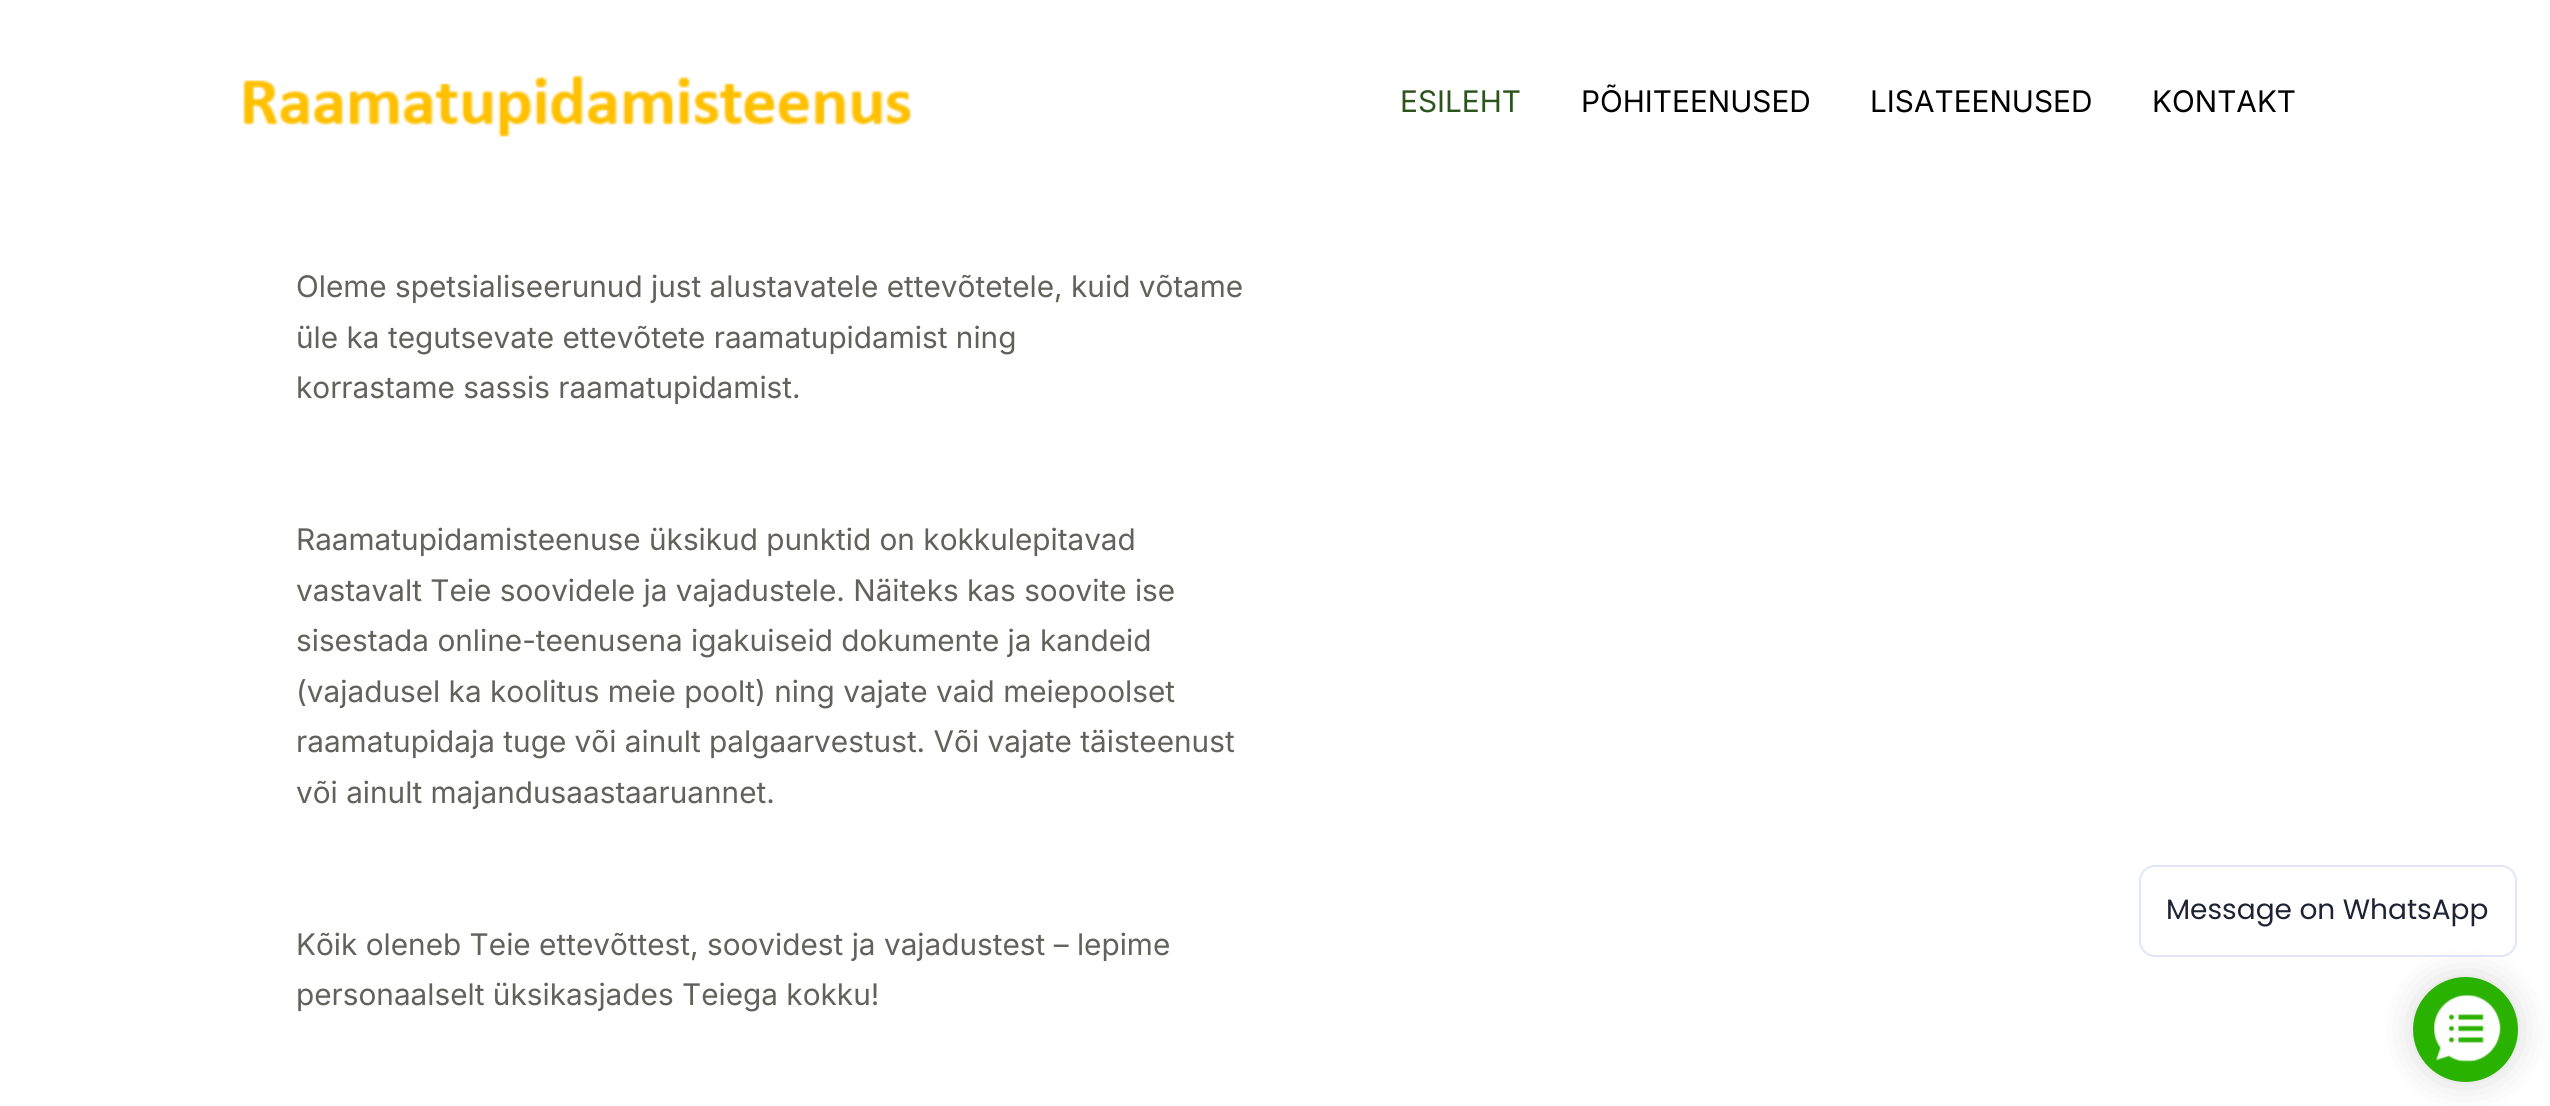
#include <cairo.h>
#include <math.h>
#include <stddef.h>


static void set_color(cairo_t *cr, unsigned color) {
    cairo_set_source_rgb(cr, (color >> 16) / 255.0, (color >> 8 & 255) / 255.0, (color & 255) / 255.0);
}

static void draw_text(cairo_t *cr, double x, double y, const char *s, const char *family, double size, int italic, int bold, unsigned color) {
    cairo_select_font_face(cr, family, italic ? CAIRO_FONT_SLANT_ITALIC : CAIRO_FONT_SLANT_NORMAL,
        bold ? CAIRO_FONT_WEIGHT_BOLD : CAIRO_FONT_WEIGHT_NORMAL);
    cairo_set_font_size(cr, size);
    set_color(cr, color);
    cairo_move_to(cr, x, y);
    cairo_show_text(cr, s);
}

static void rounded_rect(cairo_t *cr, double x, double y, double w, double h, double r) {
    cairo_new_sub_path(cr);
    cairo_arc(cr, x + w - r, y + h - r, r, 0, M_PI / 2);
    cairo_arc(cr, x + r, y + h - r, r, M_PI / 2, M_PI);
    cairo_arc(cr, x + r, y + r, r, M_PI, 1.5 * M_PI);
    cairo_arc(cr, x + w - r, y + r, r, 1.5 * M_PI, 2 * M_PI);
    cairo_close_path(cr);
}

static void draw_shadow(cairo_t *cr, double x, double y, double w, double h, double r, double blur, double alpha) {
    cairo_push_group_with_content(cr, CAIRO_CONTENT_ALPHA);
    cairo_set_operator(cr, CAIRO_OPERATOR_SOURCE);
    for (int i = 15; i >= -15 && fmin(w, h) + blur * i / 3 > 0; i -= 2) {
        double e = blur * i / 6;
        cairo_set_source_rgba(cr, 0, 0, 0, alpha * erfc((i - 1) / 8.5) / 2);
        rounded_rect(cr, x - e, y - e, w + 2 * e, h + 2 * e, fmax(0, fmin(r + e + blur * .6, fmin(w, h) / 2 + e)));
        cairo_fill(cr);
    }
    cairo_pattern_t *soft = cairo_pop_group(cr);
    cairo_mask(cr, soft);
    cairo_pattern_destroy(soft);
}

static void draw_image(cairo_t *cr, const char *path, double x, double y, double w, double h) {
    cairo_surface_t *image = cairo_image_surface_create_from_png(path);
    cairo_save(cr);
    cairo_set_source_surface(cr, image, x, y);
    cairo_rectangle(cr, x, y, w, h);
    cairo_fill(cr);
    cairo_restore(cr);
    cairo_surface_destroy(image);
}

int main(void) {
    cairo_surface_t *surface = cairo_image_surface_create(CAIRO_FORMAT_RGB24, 2550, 1106);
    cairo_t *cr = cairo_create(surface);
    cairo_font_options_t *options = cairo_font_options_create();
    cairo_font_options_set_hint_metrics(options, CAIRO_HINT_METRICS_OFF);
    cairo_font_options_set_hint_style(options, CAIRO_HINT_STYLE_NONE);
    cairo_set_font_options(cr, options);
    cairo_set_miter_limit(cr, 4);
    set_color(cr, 0xFFFFFF);
    cairo_paint(cr);
    draw_image(cr, "assets/img1.png", 242, 74, 670, 63);
    draw_text(cr, 1400, 112, "ESILEHT", "Inter", 29.75, 0, 0, 0x2C541D);
    draw_text(cr, 1581, 112, "PÕHITEENUSED", "Inter", 29.75, 0, 0, 0x000000);
    draw_text(cr, 1870, 112, "LISATEENUSED", "Inter", 29.75, 0, 0, 0x000000);
    draw_text(cr, 2152, 112, "KONTAKT", "Inter", 29.75, 0, 0, 0x000000);
    draw_text(cr, 296, 297, "Oleme spetsialiseerunud just alustavatele ettevõtetele, kuid võtame", "Inter", 29.75, 0, 0, 0x62615C);
    draw_text(cr, 296, 348, "üle ka tegutsevate ettevõtete raamatupidamist ning", "Inter", 29.75, 0, 0, 0x62615C);
    draw_text(cr, 296, 398, "korrastame sassis raamatupidamist.", "Inter", 29.75, 0, 0, 0x62615C);
    draw_text(cr, 296, 550, "Raamatupidamisteenuse üksikud punktid on kokkulepitavad", "Inter", 29.75, 0, 0, 0x62615C);
    draw_text(cr, 296, 601, "vastavalt Teie soovidele ja vajadustele. Näiteks kas soovite ise", "Inter", 29.75, 0, 0, 0x62615C);
    draw_text(cr, 296, 651, "sisestada online-teenusena igakuiseid dokumente ja kandeid", "Inter", 29.75, 0, 0, 0x62615C);
    draw_text(cr, 296, 702, "(vajadusel ka koolitus meie poolt) ning vajate vaid meiepoolset", "Inter", 29.75, 0, 0, 0x62615C);
    draw_text(cr, 296, 752, "raamatupidaja tuge või ainult palgaarvestust. Või vajate täisteenust", "Inter", 29.75, 0, 0, 0x62615C);
    draw_text(cr, 296, 803, "või ainult majandusaastaaruannet.", "Inter", 29.75, 0, 0, 0x62615C);
    draw_text(cr, 296, 955, "Kõik oleneb Teie ettevõttest, soovidest ja vajadustest – lepime", "Inter", 29.75, 0, 0, 0x62615C);
    draw_text(cr, 296, 1005, "personaalselt üksikasjades Teiega kokku!", "Inter", 29.75, 0, 0, 0x62615C);
    rounded_rect(cr, 2140, 866, 376, 90, 15);
    set_color(cr, 0xE1E6F9);
    cairo_stroke(cr);
    draw_text(cr, 2166, 919, "Message on WhatsApp", "Poppins", 28, 0, 0, 0x1E2235);
    set_color(cr, 0x000000);
    draw_shadow(cr, 2413, 977, 105, 105, 52.5, 17.5, 0.15);
    set_color(cr, 0x2AB200);
    cairo_arc(cr, 2465.5, 1029.5, 52.5, 0, 2 * M_PI);
    cairo_fill(cr);
    draw_image(cr, "assets/img2.png", 2434, 995, 67, 67);
    cairo_surface_write_to_png(surface, "output.png");
    cairo_font_options_destroy(options);
    cairo_destroy(cr);
    cairo_surface_destroy(surface);
    return 0;
}
